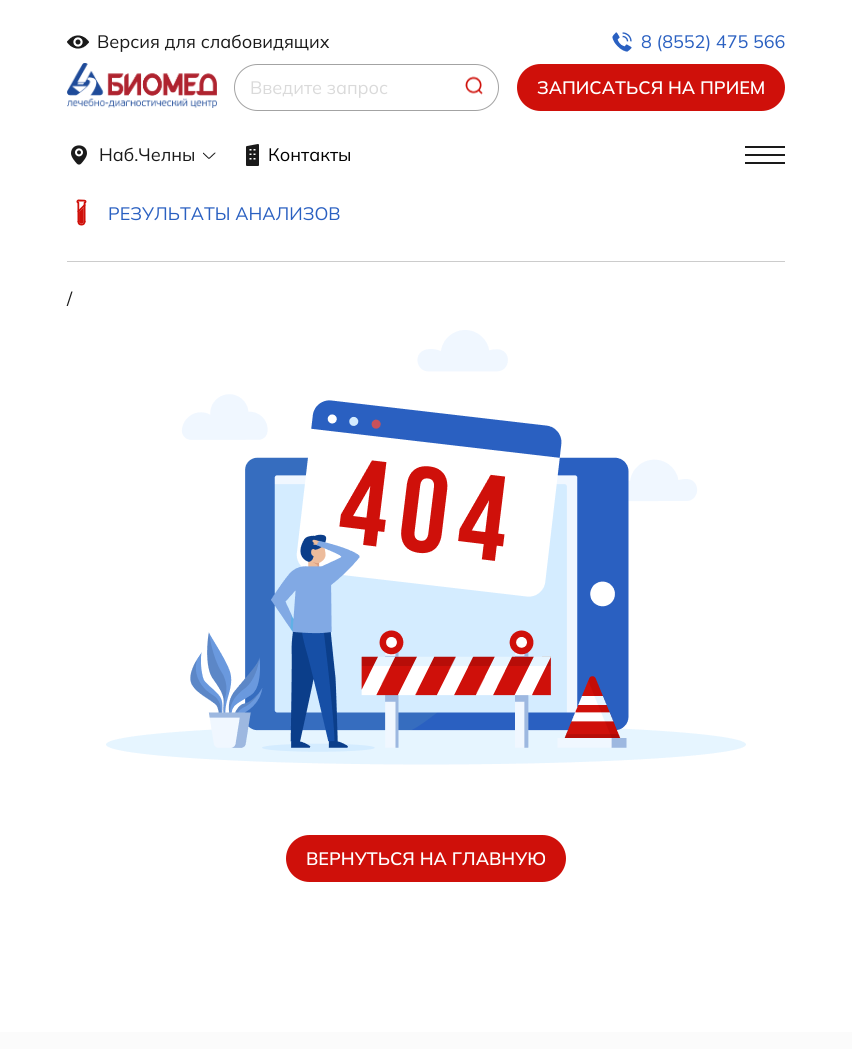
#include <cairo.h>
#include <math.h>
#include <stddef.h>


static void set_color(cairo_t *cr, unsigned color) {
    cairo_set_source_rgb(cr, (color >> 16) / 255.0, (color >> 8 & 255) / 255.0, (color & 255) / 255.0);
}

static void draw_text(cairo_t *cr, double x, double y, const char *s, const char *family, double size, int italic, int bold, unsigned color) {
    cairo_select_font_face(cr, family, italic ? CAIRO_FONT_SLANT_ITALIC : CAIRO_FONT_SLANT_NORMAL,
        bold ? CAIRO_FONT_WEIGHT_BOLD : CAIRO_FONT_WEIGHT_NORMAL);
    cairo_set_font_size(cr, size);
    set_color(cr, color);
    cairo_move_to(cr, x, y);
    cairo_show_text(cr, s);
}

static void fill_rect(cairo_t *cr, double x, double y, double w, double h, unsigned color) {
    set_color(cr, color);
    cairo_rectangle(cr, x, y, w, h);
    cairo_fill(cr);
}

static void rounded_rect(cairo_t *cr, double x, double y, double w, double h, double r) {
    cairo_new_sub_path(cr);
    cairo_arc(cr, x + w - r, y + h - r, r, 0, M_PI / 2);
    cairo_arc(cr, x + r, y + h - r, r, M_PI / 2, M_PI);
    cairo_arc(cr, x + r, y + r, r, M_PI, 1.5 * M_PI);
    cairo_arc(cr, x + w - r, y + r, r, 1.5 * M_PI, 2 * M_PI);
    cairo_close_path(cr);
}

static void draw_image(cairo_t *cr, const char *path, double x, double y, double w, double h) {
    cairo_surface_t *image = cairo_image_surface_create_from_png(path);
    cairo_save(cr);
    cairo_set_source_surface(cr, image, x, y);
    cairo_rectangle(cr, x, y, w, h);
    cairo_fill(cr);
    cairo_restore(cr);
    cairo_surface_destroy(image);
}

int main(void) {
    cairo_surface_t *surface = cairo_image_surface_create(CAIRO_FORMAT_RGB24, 852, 1049);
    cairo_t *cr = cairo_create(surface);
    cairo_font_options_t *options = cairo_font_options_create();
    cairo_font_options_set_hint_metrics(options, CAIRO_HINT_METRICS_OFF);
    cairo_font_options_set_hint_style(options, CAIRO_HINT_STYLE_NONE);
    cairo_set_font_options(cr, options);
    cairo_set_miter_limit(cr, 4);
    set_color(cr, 0xFFFFFF);
    cairo_paint(cr);
    fill_rect(cr, 67, 261, 718, 1, 0xCCCCCC);
    draw_image(cr, "assets/img1.png", 67, 35, 22, 14);
    draw_text(cr, 97, 48, "Версия для слабовидящих", "Mulish", 18, 0, 0, 0x1A1A1A);
    draw_image(cr, "assets/img2.png", 612, 32, 20, 20);
    draw_text(cr, 641, 48, "8 (8552) 475 566", "Mulish", 18, 0, 0, 0x2A60C1);
    draw_image(cr, "assets/img3.png", 67, 63, 150, 45);
    rounded_rect(cr, 234.5, 64.5, 264, 46, 23);
    set_color(cr, 0xA3A3A3);
    cairo_set_line_width(cr, 1);
    cairo_stroke(cr);
    draw_text(cr, 250, 94, "Введите запрос", "Mulish", 18, 0, 0, 0xDADADA);
    draw_image(cr, "assets/img4.png", 465, 76, 18, 19);
    set_color(cr, 0xCF100A);
    rounded_rect(cr, 517, 64, 268, 47, 23.5);
    cairo_fill(cr);
    draw_text(cr, 537, 94, "ЗАПИСАТЬСЯ НА ПРИЕМ", "Mulish SemiBold", 18, 0, 0, 0xFFFFFF);
    draw_image(cr, "assets/img5.png", 71, 145, 16, 20);
    draw_text(cr, 99, 161, "Наб.Челны", "Mulish", 18, 0, 0, 0x1A1A1A);
    draw_image(cr, "assets/img6.png", 203, 152, 13, 7);
    draw_image(cr, "assets/img7.png", 246, 144, 13, 22);
    draw_text(cr, 268, 161, "Контакты", "Mulish", 18, 0, 0, 0x000000);
    fill_rect(cr, 745, 146, 40, 2, 0x1A1A1A);
    fill_rect(cr, 745, 154, 40, 2, 0x1A1A1A);
    fill_rect(cr, 745, 162, 40, 2, 0x1A1A1A);
    draw_image(cr, "assets/img8.png", 76, 199, 11, 27);
    draw_text(cr, 108, 220, "РЕЗУЛЬТАТЫ АНАЛИЗОВ", "Mulish", 18, 0, 0, 0x2A60C1);
    draw_text(cr, 67, 305, "/", "Mulish", 18, 0, 0, 0x1A1A1A);
    draw_image(cr, "assets/img9.png", 106, 330, 640, 435);
    set_color(cr, 0xCF100A);
    rounded_rect(cr, 286, 835, 280, 47, 23.5);
    cairo_fill(cr);
    draw_text(cr, 306, 865, "ВЕРНУТЬСЯ НА ГЛАВНУЮ", "Mulish SemiBold", 18, 0, 0, 0xFFFFFF);
    fill_rect(cr, 0, 1032, 852, 17, 0xFBFBFB);
    cairo_surface_write_to_png(surface, "output.png");
    cairo_font_options_destroy(options);
    cairo_destroy(cr);
    cairo_surface_destroy(surface);
    return 0;
}
